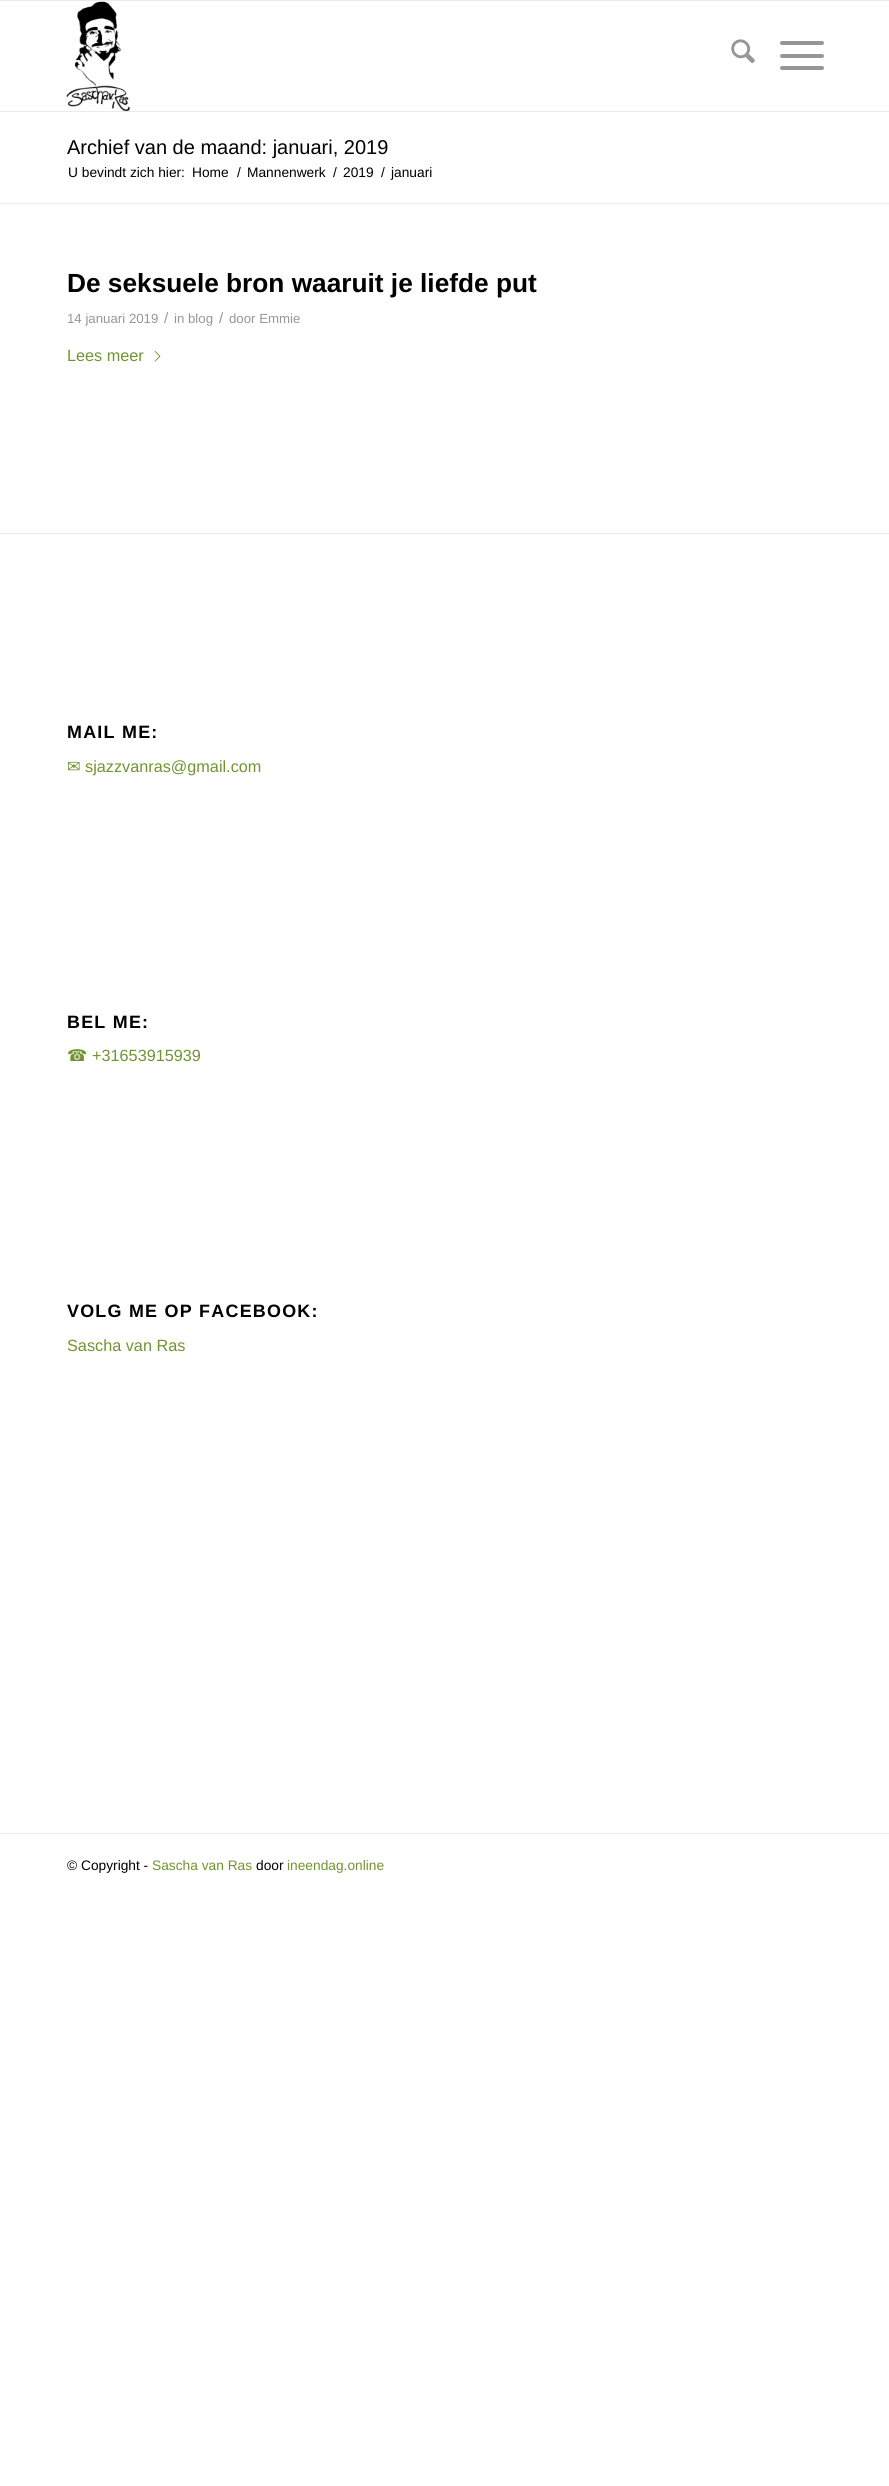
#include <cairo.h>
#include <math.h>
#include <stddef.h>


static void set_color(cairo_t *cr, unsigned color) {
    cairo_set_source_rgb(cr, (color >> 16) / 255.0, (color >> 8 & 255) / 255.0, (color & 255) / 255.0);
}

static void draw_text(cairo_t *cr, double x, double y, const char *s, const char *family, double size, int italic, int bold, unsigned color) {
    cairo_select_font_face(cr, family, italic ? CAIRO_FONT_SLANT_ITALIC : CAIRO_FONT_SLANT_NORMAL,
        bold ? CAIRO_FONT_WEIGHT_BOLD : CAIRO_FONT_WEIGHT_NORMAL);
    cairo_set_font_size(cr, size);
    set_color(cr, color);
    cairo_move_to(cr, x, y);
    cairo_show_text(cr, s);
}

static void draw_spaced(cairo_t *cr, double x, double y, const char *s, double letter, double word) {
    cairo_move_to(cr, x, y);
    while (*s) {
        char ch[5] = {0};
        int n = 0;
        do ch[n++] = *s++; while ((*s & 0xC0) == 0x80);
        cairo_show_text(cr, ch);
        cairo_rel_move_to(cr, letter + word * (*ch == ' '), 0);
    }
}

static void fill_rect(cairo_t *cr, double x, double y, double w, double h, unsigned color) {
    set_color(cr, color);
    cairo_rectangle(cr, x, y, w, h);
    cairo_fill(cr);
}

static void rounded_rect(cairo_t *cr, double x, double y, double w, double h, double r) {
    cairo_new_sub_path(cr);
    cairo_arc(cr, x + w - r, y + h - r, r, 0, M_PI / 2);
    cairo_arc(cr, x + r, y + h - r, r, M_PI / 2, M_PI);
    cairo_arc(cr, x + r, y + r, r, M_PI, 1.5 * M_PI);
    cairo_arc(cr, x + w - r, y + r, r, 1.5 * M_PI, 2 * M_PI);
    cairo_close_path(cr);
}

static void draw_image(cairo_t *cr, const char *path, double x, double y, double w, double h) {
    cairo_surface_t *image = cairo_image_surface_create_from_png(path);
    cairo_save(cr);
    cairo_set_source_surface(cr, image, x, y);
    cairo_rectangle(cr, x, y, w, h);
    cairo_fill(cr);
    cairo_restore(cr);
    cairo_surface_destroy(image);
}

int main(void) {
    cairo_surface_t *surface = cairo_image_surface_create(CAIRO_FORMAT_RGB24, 889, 2486);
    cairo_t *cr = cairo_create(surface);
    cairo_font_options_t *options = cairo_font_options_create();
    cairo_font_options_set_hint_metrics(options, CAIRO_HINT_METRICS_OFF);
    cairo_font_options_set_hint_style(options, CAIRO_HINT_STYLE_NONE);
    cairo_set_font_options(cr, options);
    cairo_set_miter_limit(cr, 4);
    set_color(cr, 0xFFFFFF);
    cairo_paint(cr);
    fill_rect(cr, 0, 0, 889, 1, 0xEBEBEB);
    fill_rect(cr, 0, 111, 889, 1, 0xEBEBEB);
    draw_image(cr, "assets/img1.png", 66, 1, 64, 111);
    draw_image(cr, "assets/img2.png", 731, 39, 24, 25);
    set_color(cr, 0x969696);
    rounded_rect(cr, 780, 54, 44, 4, 2);
    cairo_fill(cr);
    rounded_rect(cr, 780, 41, 44, 4, 2);
    cairo_fill(cr);
    rounded_rect(cr, 780, 66, 44, 4, 2);
    cairo_fill(cr);
    draw_text(cr, 67, 154, "Archief van de maand: januari, 2019", "Liberation Sans", 20, 0, 0, 0x000000);
    draw_text(cr, 68, 177, "U bevindt zich hier:", "Liberation Sans", 13.75, 0, 0, 0x000000);
    draw_text(cr, 192, 177, "Home", "Liberation Sans", 13.75, 0, 0, 0x000000);
    draw_text(cr, 237, 177, "/", "Liberation Sans", 13.75, 0, 0, 0x000000);
    draw_text(cr, 247, 177, "Mannenwerk", "Liberation Sans", 13.75, 0, 0, 0x000000);
    draw_text(cr, 333, 177, "/", "Liberation Sans", 13.75, 0, 0, 0x000000);
    draw_text(cr, 343, 177, "2019", "Liberation Sans", 13.75, 0, 0, 0x000000);
    draw_text(cr, 381, 177, "/", "Liberation Sans", 13.75, 0, 0, 0x000000);
    draw_text(cr, 391, 177, "januari", "Liberation Sans", 13.75, 0, 0, 0x000000);
    fill_rect(cr, 0, 203, 889, 1, 0xEBEBEB);
    draw_text(cr, 67, 292, "De seksuele bron waaruit je liefde put", "Liberation Sans", 26.25, 0, 1, 0x000000);
    draw_text(cr, 67, 323, "14 januari 2019", "Liberation Sans", 13.25, 0, 0, 0x969696);
    draw_text(cr, 164, 323, "/", "Liberation Sans", 15, 0, 0, 0x969696);
    draw_text(cr, 174, 323, "in blog", "Liberation Sans", 13.25, 0, 0, 0x969696);
    draw_text(cr, 219, 323, "/", "Liberation Sans", 15, 0, 0, 0x969696);
    draw_text(cr, 229, 323, "door Emmie", "Liberation Sans", 13.25, 0, 0, 0x969696);
    draw_text(cr, 67, 361, "Lees meer", "Liberation Sans", 16.25, 0, 0, 0x719430);
    draw_image(cr, "assets/img3.png", 154, 350, 7, 12);
    fill_rect(cr, 0, 533, 889, 1, 0xEBEBEB);
    cairo_select_font_face(cr, "Liberation Sans", CAIRO_FONT_SLANT_NORMAL, CAIRO_FONT_WEIGHT_BOLD);
    cairo_set_font_size(cr, 17.9);
    set_color(cr, 0x000000);
    draw_spaced(cr, 67, 738, "MAIL ME:", 1.25, 0);
    draw_text(cr, 67, 772, "✉", "DejaVu Sans", 16.25, 0, 0, 0x719430);
    draw_text(cr, 85, 772, "sjazzvanras@gmail.com", "Liberation Sans", 16.25, 0, 0, 0x719430);
    cairo_select_font_face(cr, "Liberation Sans", CAIRO_FONT_SLANT_NORMAL, CAIRO_FONT_WEIGHT_BOLD);
    cairo_set_font_size(cr, 17.9);
    set_color(cr, 0x000000);
    draw_spaced(cr, 67, 1028, "BEL ME:", 1.25, 0);
    draw_text(cr, 67, 1061, "☎", "DejaVu Sans", 16.25, 0, 0, 0x719430);
    draw_text(cr, 92, 1061, "+31653915939", "Liberation Sans", 16.25, 0, 0, 0x719430);
    cairo_select_font_face(cr, "Liberation Sans", CAIRO_FONT_SLANT_NORMAL, CAIRO_FONT_WEIGHT_BOLD);
    cairo_set_font_size(cr, 17.9);
    set_color(cr, 0x000000);
    draw_spaced(cr, 67, 1317, "VOLG ME OP FACEBOOK:", 1.25, 0);
    draw_text(cr, 67, 1351, "Sascha van Ras", "Liberation Sans", 16.25, 0, 0, 0x719430);
    fill_rect(cr, 0, 1833, 889, 1, 0xEBEBEB);
    draw_text(cr, 67, 1870, "© Copyright -", "Liberation Sans", 13.75, 0, 0, 0x000000);
    draw_text(cr, 152, 1870, "Sascha van Ras", "Liberation Sans", 13.75, 0, 0, 0x719430);
    draw_text(cr, 256, 1870, "door", "Liberation Sans", 13.75, 0, 0, 0x000000);
    draw_text(cr, 287, 1870, "ineendag.online", "Liberation Sans", 13.75, 0, 0, 0x719430);
    cairo_surface_write_to_png(surface, "output.png");
    cairo_font_options_destroy(options);
    cairo_destroy(cr);
    cairo_surface_destroy(surface);
    return 0;
}
